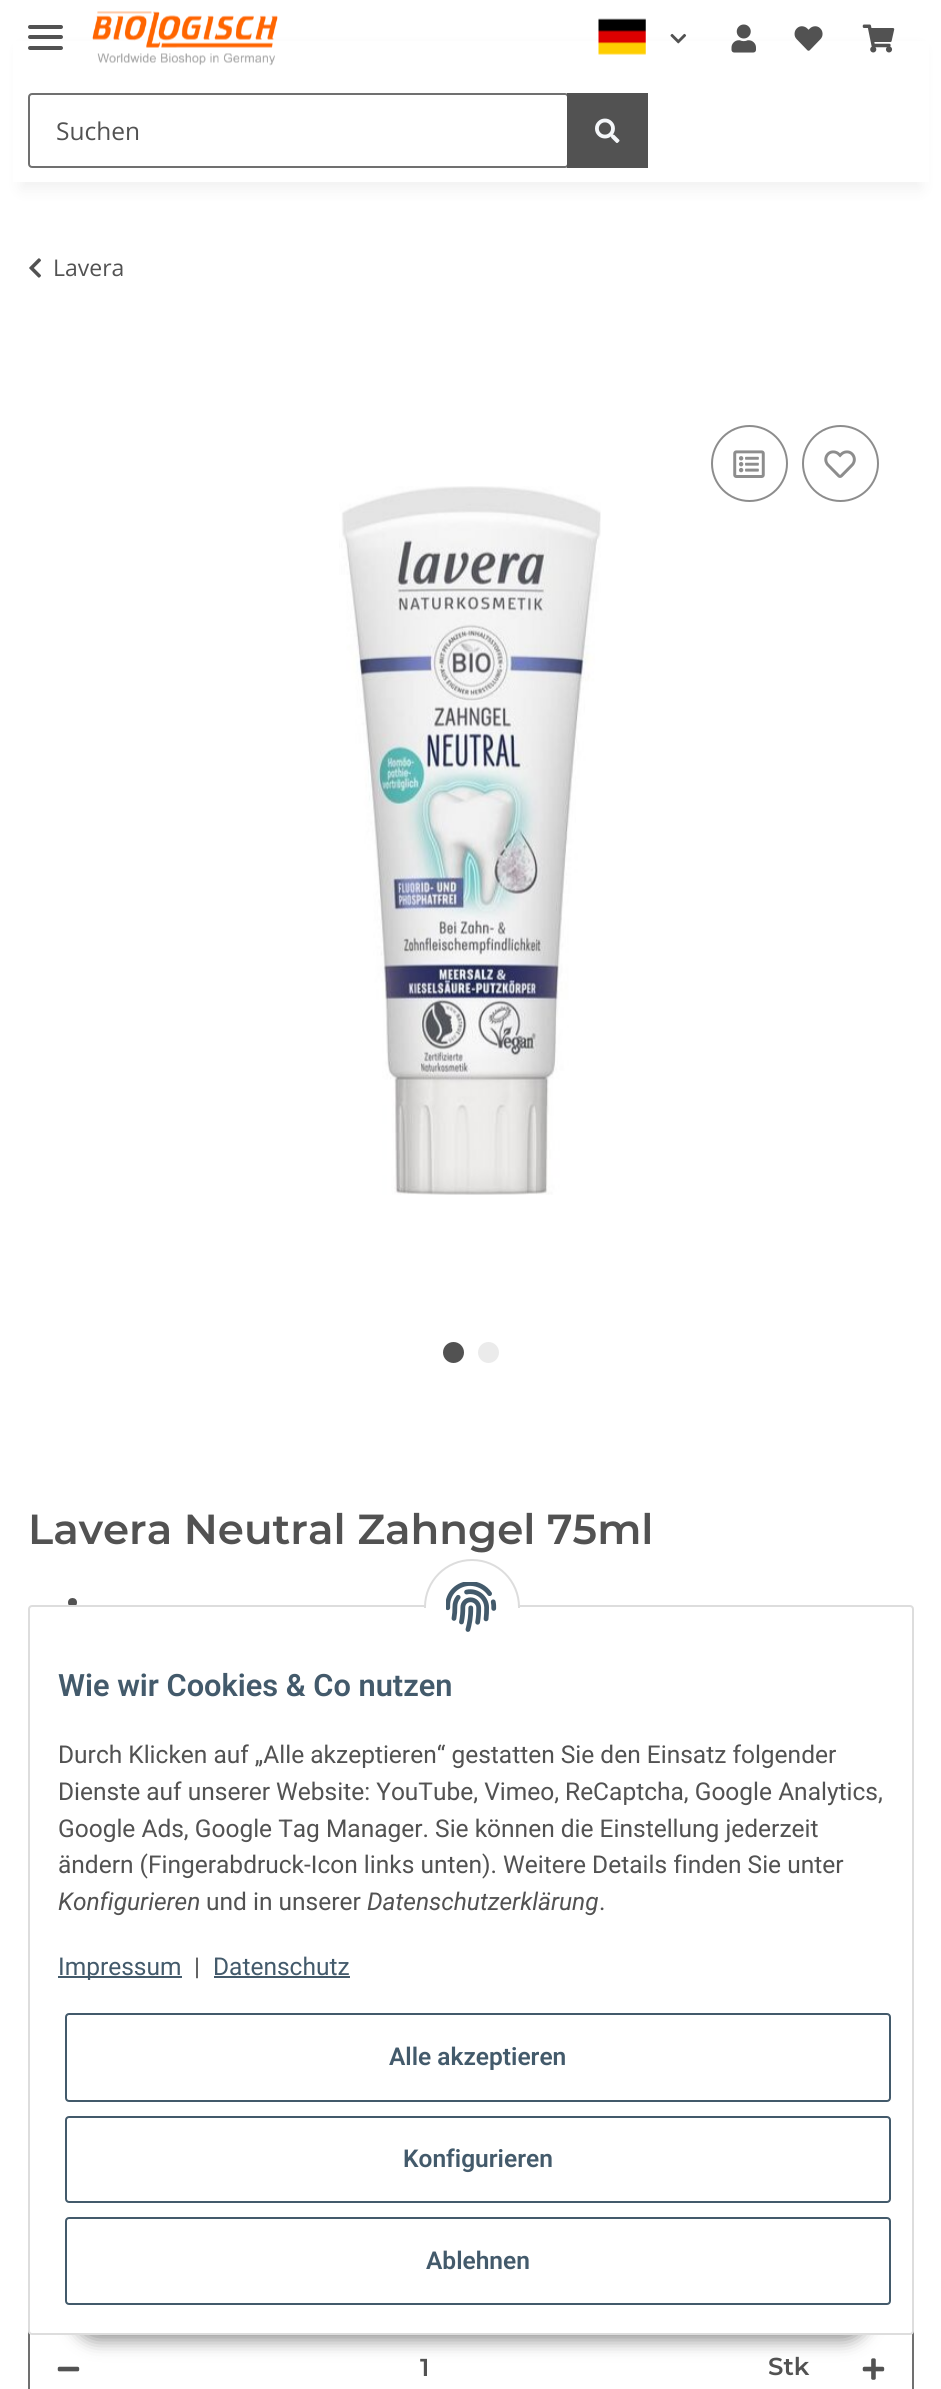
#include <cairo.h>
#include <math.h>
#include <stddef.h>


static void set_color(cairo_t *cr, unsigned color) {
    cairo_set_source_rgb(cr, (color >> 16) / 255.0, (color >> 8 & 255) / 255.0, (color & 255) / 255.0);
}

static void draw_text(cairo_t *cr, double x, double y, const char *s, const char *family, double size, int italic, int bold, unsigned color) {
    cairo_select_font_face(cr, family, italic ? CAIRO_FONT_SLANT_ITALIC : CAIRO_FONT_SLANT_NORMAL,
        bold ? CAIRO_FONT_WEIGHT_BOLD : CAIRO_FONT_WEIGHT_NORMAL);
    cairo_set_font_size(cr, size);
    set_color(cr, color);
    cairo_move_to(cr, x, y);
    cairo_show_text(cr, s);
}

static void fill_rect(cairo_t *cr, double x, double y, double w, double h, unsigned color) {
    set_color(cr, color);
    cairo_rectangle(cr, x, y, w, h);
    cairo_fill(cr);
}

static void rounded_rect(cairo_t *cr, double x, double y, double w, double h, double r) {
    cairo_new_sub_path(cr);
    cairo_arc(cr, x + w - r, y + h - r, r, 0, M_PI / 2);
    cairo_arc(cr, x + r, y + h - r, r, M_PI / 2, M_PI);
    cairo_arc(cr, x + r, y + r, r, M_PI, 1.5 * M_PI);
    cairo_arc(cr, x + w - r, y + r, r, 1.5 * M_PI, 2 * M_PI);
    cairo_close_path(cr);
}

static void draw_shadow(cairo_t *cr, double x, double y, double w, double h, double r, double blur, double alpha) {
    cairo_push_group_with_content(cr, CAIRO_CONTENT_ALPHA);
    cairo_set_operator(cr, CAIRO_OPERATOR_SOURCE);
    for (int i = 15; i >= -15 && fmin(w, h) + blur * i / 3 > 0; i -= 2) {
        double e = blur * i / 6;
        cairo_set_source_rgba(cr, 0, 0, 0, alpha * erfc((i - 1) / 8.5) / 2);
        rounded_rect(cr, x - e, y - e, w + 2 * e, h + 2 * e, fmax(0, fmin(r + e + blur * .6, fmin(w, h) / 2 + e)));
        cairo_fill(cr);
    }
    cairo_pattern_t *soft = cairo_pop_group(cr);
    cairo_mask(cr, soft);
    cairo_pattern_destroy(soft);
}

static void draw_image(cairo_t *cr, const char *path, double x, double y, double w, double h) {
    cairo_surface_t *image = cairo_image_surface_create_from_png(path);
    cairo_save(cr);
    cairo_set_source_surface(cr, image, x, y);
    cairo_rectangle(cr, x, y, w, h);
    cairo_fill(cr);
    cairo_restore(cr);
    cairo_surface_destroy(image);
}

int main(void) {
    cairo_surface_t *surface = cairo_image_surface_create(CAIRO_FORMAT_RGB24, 941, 2389);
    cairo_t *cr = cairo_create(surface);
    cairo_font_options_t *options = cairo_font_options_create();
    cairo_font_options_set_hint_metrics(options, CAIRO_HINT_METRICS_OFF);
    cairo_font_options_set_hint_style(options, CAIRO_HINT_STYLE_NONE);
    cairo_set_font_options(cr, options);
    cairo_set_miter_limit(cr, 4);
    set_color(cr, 0xFFFFFF);
    cairo_paint(cr);
    set_color(cr, 0x000000);
    draw_shadow(cr, 21, 49, 900, 140, 0, 8, 0.06);
    fill_rect(cr, 13, 41, 916, 141, 0xFFFFFF);
    set_color(cr, 0x525252);
    rounded_rect(cr, 28, 35, 35, 4, 2);
    cairo_fill(cr);
    rounded_rect(cr, 28, 25, 35, 4, 2);
    cairo_fill(cr);
    rounded_rect(cr, 28, 46, 35, 4, 2);
    cairo_fill(cr);
    draw_image(cr, "assets/img1.png", 92, 11, 186, 55);
    draw_image(cr, "assets/img2.png", 598, 18, 48, 37);
    draw_image(cr, "assets/img3.png", 670, 33, 17, 11);
    draw_image(cr, "assets/img4.png", 731, 24, 25, 29);
    draw_image(cr, "assets/img5.png", 794, 26, 29, 25);
    draw_image(cr, "assets/img6.png", 862, 24, 33, 29);
    rounded_rect(cr, 29, 94, 539, 73, 3);
    set_color(cr, 0x707070);
    cairo_stroke(cr);
    draw_text(cr, 56, 140, "Suchen", "Open Sans", 24.5, 0, 0, 0x525252);
    fill_rect(cr, 567, 93, 81, 75, 0x525252);
    draw_image(cr, "assets/img7.png", 595, 118, 25, 25);
    draw_image(cr, "assets/img8.png", 29, 258, 12, 20);
    draw_text(cr, 53, 276, "Lavera", "Open Sans", 23, 0, 0, 0x525252);
    cairo_new_path(cr);
    cairo_arc(cr, 749.5, 463.5, 37.5, 0, 2 * M_PI);
    set_color(cr, 0x8D8D8D);
    cairo_stroke(cr);
    draw_image(cr, "assets/img9.png", 733, 450, 32, 28);
    cairo_arc(cr, 840.5, 463.5, 37.5, 0, 2 * M_PI);
    cairo_stroke(cr);
    draw_image(cr, "assets/img10.png", 824, 450, 32, 28);
    draw_image(cr, "assets/img11.png", 339, 486, 262, 709);
    set_color(cr, 0x525252);
    cairo_arc(cr, 453.5, 1352.5, 8.5, 0, 2 * M_PI);
    cairo_fill_preserve(cr);
    cairo_set_line_width(cr, 4);
    cairo_stroke(cr);
    set_color(cr, 0xEBEBEB);
    cairo_arc(cr, 488.5, 1352.5, 8.5, 0, 2 * M_PI);
    cairo_fill_preserve(cr);
    cairo_stroke(cr);
    draw_text(cr, 28, 1544, "Lavera Neutral Zahngel 75ml", "Montserrat SemiBold", 42, 0, 0, 0x525252);
    cairo_new_path(cr);
    cairo_arc(cr, 72.5, 1602.5, 4.5, 0, 2 * M_PI);
    cairo_fill(cr);
    rounded_rect(cr, 29, 2330, 884, 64, 3);
    set_color(cr, 0x707070);
    cairo_set_line_width(cr, 2);
    cairo_stroke(cr);
    draw_image(cr, "assets/img12.png", 57, 2366, 23, 6);
    draw_text(cr, 420, 2376, "1", "Montserrat SemiBold", 24.5, 0, 0, 0x525252);
    draw_text(cr, 768, 2375, "Stk", "Montserrat SemiBold", 24.5, 0, 0, 0x525252);
    draw_image(cr, "assets/img13.png", 862, 2358, 23, 22);
    set_color(cr, 0x000000);
    draw_shadow(cr, 74, 2284, 794, 56, 28, 9, 0.45);
    set_color(cr, 0xFFFFFF);
    rounded_rect(cr, 29, 1606, 884, 728, 3);
    cairo_fill_preserve(cr);
    set_color(cr, 0xDDDDDD);
    cairo_stroke(cr);
    set_color(cr, 0xFFFFFF);
    rounded_rect(cr, 425, 1560, 94, 95, 47);
    cairo_fill_preserve(cr);
    set_color(cr, 0xDDDDDD);
    cairo_stroke(cr);
    fill_rect(cr, 424, 1608, 96, 48, 0xFFFFFF);
    draw_image(cr, "assets/img14.png", 446, 1582, 51, 50);
    draw_text(cr, 58, 1696, "Wie wir Cookies & Co nutzen", "Roboto SemiBold", 30.75, 0, 0, 0x435A6B);
    draw_text(cr, 58, 1763, "Durch Klicken auf „Alle akzeptieren“ gestatten Sie den Einsatz folgender", "Roboto", 24.5, 0, 0, 0x525252);
    draw_text(cr, 58, 1800, "Dienste auf unserer Website: YouTube, Vimeo, ReCaptcha, Google Analytics,", "Roboto", 24.5, 0, 0, 0x525252);
    draw_text(cr, 58, 1837, "Google Ads, Google Tag Manager. Sie können die Einstellung jederzeit", "Roboto", 24.5, 0, 0, 0x525252);
    draw_text(cr, 58, 1873, "ändern (Fingerabdruck-Icon links unten). Weitere Details finden Sie unter", "Roboto", 24.5, 0, 0, 0x525252);
    draw_text(cr, 58, 1910, "Konfigurieren", "Roboto", 24.5, 1, 0, 0x525252);
    draw_text(cr, 206, 1910, "und in unserer", "Roboto", 24.5, 0, 0, 0x525252);
    draw_text(cr, 367, 1910, "Datenschutzerklärung", "Roboto", 24.5, 1, 0, 0x525252);
    draw_text(cr, 599, 1910, ".", "Roboto", 24.5, 0, 0, 0x525252);
    fill_rect(cr, 58, 1976, 124, 2, 0x435A6B);
    draw_text(cr, 58, 1975, "Impressum", "Roboto", 24.5, 0, 0, 0x435A6B);
    draw_text(cr, 194, 1975, "|", "Roboto", 24.5, 0, 0, 0x525252);
    draw_text(cr, 213, 1975, "Datenschutz", "Roboto", 24.5, 0, 0, 0x435A6B);
    fill_rect(cr, 214, 1976, 136, 2, 0x435A6B);
    rounded_rect(cr, 66, 2014, 824, 87, 3);
    cairo_stroke(cr);
    draw_text(cr, 389, 2065, "Alle akzeptieren", "Roboto SemiBold", 24.5, 0, 0, 0x435A6B);
    rounded_rect(cr, 66, 2117, 824, 85, 3);
    cairo_stroke(cr);
    draw_text(cr, 403, 2167, "Konfigurieren", "Roboto SemiBold", 24.5, 0, 0, 0x435A6B);
    rounded_rect(cr, 66, 2218, 824, 86, 3);
    cairo_stroke(cr);
    draw_text(cr, 426, 2269, "Ablehnen", "Roboto SemiBold", 24.5, 0, 0, 0x435A6B);
    cairo_surface_write_to_png(surface, "output.png");
    cairo_font_options_destroy(options);
    cairo_destroy(cr);
    cairo_surface_destroy(surface);
    return 0;
}
